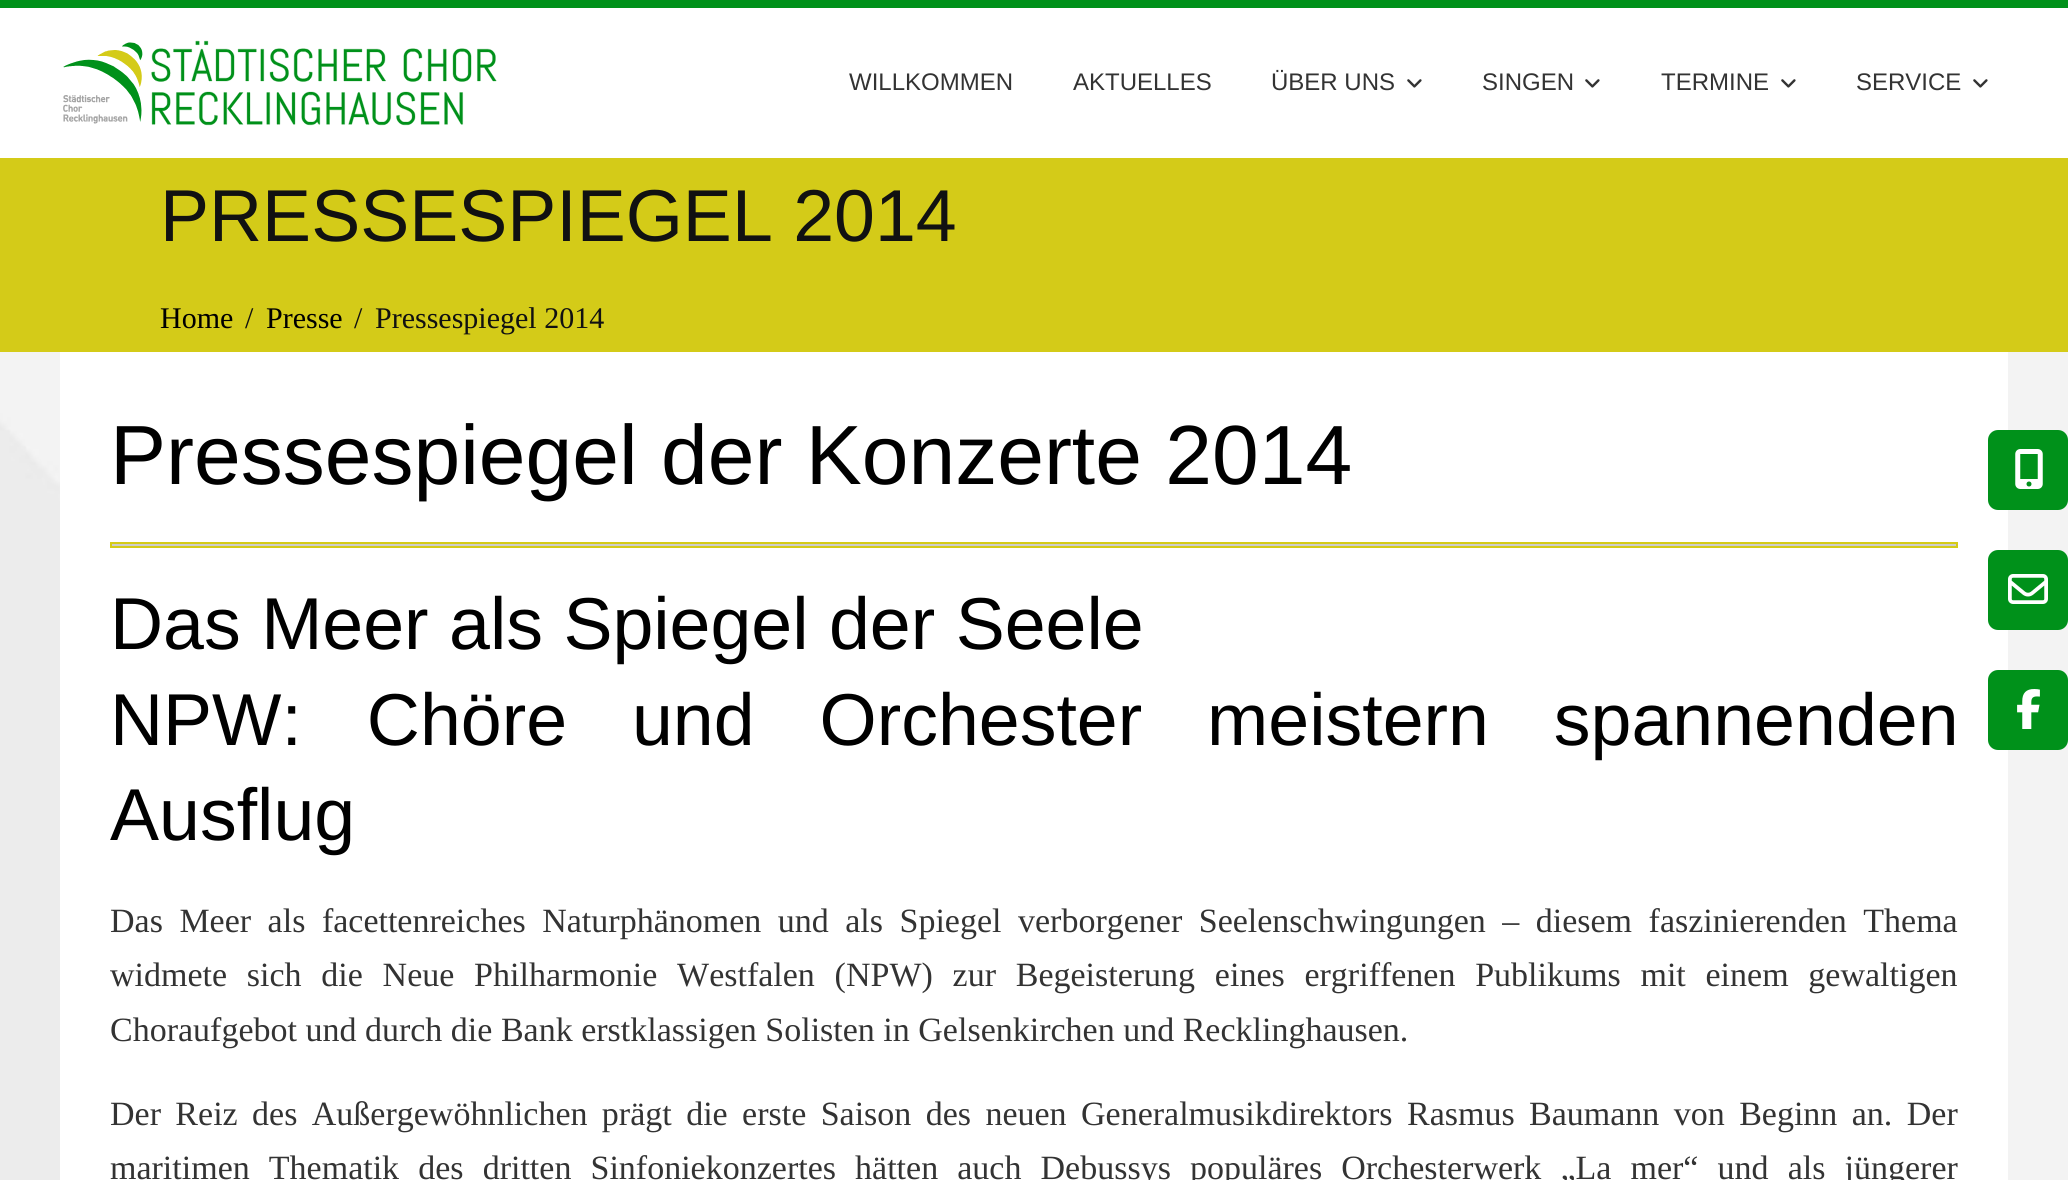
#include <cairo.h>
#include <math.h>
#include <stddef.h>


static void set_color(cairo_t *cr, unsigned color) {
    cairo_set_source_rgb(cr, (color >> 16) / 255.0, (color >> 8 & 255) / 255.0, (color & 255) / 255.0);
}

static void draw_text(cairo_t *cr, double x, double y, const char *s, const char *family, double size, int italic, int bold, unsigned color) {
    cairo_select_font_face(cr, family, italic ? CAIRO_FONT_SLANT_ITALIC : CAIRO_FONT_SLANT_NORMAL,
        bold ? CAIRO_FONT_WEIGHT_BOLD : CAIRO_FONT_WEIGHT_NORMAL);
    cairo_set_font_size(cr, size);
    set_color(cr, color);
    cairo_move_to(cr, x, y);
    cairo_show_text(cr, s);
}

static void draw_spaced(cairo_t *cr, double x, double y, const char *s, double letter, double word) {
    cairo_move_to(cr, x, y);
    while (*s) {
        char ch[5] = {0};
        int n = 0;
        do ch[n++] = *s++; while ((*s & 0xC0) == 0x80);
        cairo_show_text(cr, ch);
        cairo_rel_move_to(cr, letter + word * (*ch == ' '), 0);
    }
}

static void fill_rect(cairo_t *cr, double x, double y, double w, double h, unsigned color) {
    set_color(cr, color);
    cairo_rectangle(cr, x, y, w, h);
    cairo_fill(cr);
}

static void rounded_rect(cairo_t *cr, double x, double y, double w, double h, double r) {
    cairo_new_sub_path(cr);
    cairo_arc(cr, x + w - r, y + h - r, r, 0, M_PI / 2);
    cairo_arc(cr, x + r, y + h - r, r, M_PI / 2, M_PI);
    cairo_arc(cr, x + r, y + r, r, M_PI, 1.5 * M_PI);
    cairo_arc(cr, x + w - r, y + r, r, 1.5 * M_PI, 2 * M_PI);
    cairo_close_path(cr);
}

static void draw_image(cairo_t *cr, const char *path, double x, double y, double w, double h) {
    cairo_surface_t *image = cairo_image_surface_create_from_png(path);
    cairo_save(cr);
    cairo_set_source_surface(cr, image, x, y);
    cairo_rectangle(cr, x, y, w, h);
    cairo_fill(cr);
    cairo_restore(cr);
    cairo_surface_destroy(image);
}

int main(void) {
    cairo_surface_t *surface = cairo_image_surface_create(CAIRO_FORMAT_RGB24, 2068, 1180);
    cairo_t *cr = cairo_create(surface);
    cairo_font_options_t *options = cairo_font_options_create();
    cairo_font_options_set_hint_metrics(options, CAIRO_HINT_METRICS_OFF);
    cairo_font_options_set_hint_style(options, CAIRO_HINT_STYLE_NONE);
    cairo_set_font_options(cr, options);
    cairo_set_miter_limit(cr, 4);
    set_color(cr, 0xFFFFFF);
    cairo_paint(cr);
    draw_image(cr, "assets/img1.png", 0, 352, 2068, 828);
    fill_rect(cr, 0, 0, 2068, 8, 0x00911A);
    draw_image(cr, "assets/img2.png", 63, 40, 434, 86);
    draw_text(cr, 849, 90, "WILLKOMMEN", "Liberation Sans", 24, 0, 0, 0x333333);
    draw_text(cr, 1073, 90, "AKTUELLES", "Liberation Sans", 24, 0, 0, 0x333333);
    draw_text(cr, 1271, 90, "ÜBER UNS", "Liberation Sans", 24, 0, 0, 0x333333);
    draw_image(cr, "assets/img3.png", 1407, 79, 15, 9);
    draw_text(cr, 1482, 90, "SINGEN", "Liberation Sans", 24, 0, 0, 0x333333);
    draw_image(cr, "assets/img3.png", 1585, 79, 15, 9);
    draw_text(cr, 1661, 90, "TERMINE", "Liberation Sans", 24, 0, 0, 0x333333);
    draw_image(cr, "assets/img3.png", 1781, 79, 15, 9);
    draw_text(cr, 1856, 90, "SERVICE", "Liberation Sans", 24, 0, 0, 0x333333);
    draw_image(cr, "assets/img3.png", 1973, 79, 15, 9);
    fill_rect(cr, 0, 158, 2068, 194, 0xD4CB18);
    draw_text(cr, 160, 241, "PRESSESPIEGEL 2014", "Liberation Sans", 73.5, 0, 0, 0x111111);
    draw_text(cr, 160, 328, "Home", "Liberation Serif", 30, 0, 0, 0x000000);
    draw_text(cr, 245, 328, "/", "Liberation Serif", 30, 0, 0, 0x111111);
    draw_text(cr, 266, 328, "Presse", "Liberation Serif", 30, 0, 0, 0x000000);
    draw_text(cr, 354, 328, "/", "Liberation Serif", 30, 0, 0, 0x111111);
    draw_text(cr, 375, 328, "Pressespiegel 2014", "Liberation Serif", 30, 0, 0, 0x111111);
    fill_rect(cr, 60, 352, 1948, 828, 0xFFFFFF);
    draw_text(cr, 110, 484, "Pressespiegel der Konzerte 2014", "Liberation Sans", 84, 0, 0, 0x000000);
    set_color(cr, 0xCCCCCC);
    cairo_rectangle(cr, 111, 543, 1846, 4);
    cairo_fill_preserve(cr);
    set_color(cr, 0xD4CB18);
    cairo_stroke(cr);
    draw_text(cr, 110, 649, "Das Meer als Spiegel der Seele", "Liberation Sans", 73.5, 0, 0, 0x000000);
    draw_spaced(cr, 110, 745, "NPW: Chöre und Orchester meistern spannenden", 0, 44.5);
    draw_text(cr, 110, 840, "Ausflug", "Liberation Sans", 73.5, 0, 0, 0x000000);
    cairo_select_font_face(cr, "Liberation Serif", CAIRO_FONT_SLANT_NORMAL, CAIRO_FONT_WEIGHT_NORMAL);
    cairo_set_font_size(cr, 34);
    set_color(cr, 0x333333);
    draw_spaced(cr, 110, 932, "Das Meer als facettenreiches Naturphänomen und als Spiegel verborgener Seelenschwingungen – diesem faszinierenden Thema", 0, 8);
    draw_spaced(cr, 110, 986, "widmete sich die Neue Philharmonie Westfalen (NPW) zur Begeisterung eines ergriffenen Publikums mit einem gewaltigen", 0, 11.25);
    draw_text(cr, 110, 1041, "Choraufgebot und durch die Bank erstklassigen Solisten in Gelsenkirchen und Recklinghausen.", "Liberation Serif", 34, 0, 0, 0x333333);
    draw_spaced(cr, 110, 1125, "Der Reiz des Außergewöhnlichen prägt die erste Saison des neuen Generalmusikdirektors Rasmus Baumann von Beginn an. Der", 0, 5.9);
    draw_spaced(cr, 110, 1179, "maritimen Thematik des dritten Sinfoniekonzertes hätten auch Debussys populäres Orchesterwerk „La mer“ und als jüngerer", 0, 10.6);
    set_color(cr, 0x00911A);
    rounded_rect(cr, 1988, 430, 80, 80, 10);
    cairo_fill(cr);
    draw_image(cr, "assets/img4.png", 2015, 449, 28, 40);
    rounded_rect(cr, 1988, 550, 80, 80, 10);
    cairo_fill(cr);
    draw_image(cr, "assets/img5.png", 2008, 574, 40, 30);
    rounded_rect(cr, 1988, 670, 80, 80, 10);
    cairo_fill(cr);
    draw_image(cr, "assets/img6.png", 2017, 689, 23, 40);
    cairo_surface_write_to_png(surface, "output.png");
    cairo_font_options_destroy(options);
    cairo_destroy(cr);
    cairo_surface_destroy(surface);
    return 0;
}
